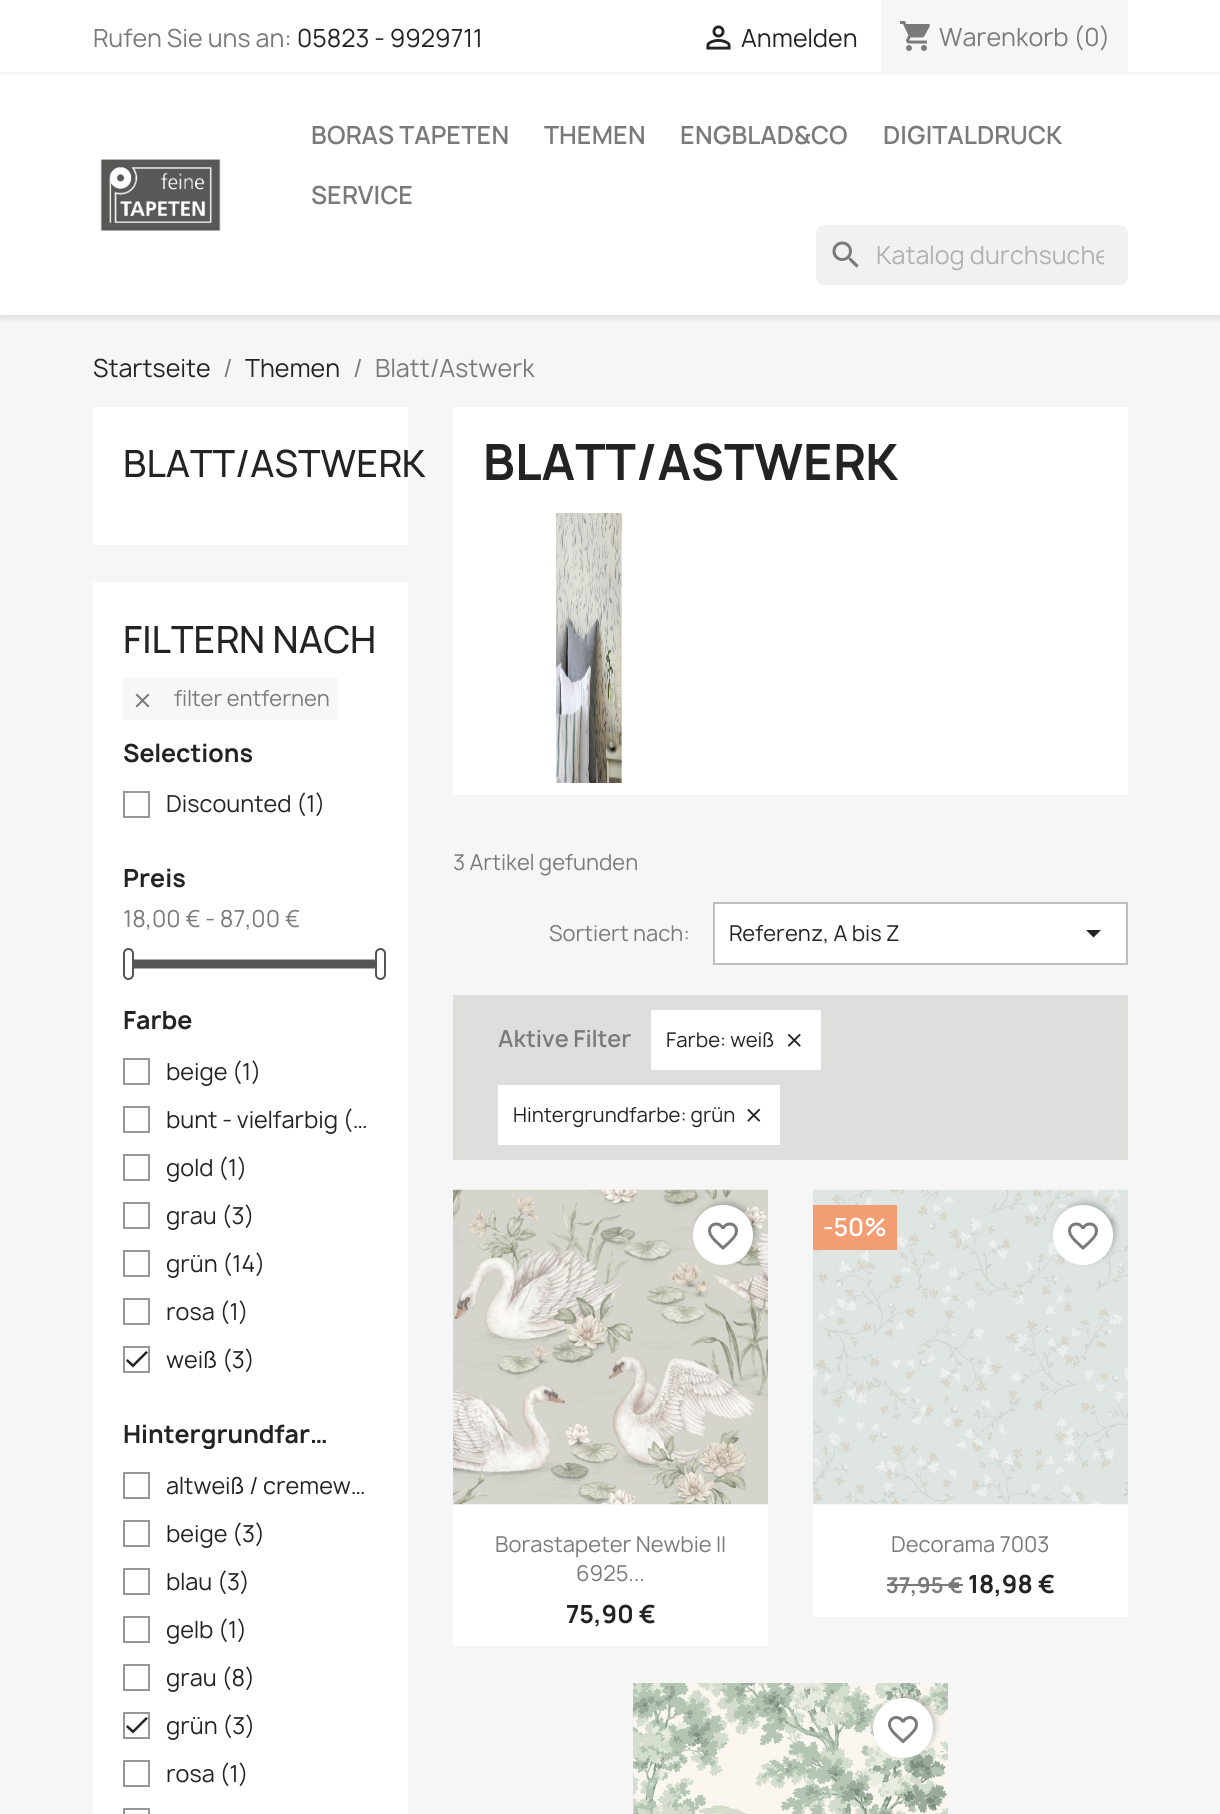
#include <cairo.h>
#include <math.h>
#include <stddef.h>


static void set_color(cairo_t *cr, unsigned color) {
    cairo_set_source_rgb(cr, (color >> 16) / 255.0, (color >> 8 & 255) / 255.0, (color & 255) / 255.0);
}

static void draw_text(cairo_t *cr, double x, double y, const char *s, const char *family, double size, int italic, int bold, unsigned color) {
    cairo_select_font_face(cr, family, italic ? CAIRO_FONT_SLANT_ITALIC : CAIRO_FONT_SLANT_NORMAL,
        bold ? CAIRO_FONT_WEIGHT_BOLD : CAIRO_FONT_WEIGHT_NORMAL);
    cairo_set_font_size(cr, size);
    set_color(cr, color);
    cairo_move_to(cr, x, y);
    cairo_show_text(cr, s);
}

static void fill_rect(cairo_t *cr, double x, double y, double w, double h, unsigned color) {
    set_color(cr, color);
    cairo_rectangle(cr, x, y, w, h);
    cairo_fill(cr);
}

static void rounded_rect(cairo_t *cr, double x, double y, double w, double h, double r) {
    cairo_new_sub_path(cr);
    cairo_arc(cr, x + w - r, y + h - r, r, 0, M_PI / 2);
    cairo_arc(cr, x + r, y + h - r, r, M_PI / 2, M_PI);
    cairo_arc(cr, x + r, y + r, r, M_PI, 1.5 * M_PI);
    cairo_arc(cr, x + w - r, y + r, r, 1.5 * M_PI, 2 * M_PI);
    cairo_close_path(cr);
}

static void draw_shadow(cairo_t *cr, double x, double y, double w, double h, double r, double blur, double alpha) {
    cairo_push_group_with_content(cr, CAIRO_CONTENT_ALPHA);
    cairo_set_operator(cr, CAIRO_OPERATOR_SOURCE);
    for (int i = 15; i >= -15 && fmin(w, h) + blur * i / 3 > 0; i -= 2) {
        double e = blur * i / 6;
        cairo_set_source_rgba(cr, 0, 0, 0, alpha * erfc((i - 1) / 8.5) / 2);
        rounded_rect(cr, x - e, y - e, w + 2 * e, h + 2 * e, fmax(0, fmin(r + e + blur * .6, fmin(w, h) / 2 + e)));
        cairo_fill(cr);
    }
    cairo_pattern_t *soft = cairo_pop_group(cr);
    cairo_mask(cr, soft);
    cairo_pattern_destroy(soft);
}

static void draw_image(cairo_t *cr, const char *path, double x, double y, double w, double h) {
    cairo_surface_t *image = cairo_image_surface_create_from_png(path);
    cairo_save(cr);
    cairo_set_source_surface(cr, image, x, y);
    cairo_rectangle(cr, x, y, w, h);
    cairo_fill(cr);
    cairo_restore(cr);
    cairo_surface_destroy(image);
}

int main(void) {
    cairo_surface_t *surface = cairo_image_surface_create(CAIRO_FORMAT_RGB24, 1220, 1814);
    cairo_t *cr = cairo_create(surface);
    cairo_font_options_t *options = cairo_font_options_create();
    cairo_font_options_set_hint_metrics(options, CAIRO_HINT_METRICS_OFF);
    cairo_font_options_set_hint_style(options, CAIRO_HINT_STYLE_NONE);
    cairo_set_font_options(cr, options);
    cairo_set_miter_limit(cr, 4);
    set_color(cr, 0xFFFFFF);
    cairo_paint(cr);
    fill_rect(cr, 0, 315, 1220, 1499, 0xF6F6F6);
    cairo_save(cr);
    cairo_rectangle(cr, 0, 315, 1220, 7);
    cairo_clip(cr);
    set_color(cr, 0x000000);
    draw_shadow(cr, 0, 3, 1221, 315, 0, 4, 0.11);
    cairo_restore(cr);
    fill_rect(cr, 0, 72, 1220, 3, 0xF6F6F6);
    draw_text(cr, 93, 47, "Rufen Sie uns an:", "Manrope", 24, 0, 0, 0x7A7A7A);
    draw_text(cr, 297, 47, "05823 - 9929711", "Manrope", 24, 0, 0, 0x232323);
    draw_image(cr, "assets/img1.png", 706, 25, 25, 25);
    draw_text(cr, 741, 47, "Anmelden", "Manrope", 24, 0, 0, 0x232323);
    fill_rect(cr, 881, 0, 247, 72, 0xF6F6F6);
    draw_image(cr, "assets/img2.png", 900, 21, 30, 30);
    draw_text(cr, 939, 46, "Warenkorb (0)", "Manrope", 24, 0, 0, 0x7A7A7A);
    draw_image(cr, "assets/img3.png", 100, 159, 121, 72);
    draw_text(cr, 311, 144, "BORAS TAPETEN", "Manrope SemiBold", 24, 0, 0, 0x7A7A7A);
    draw_text(cr, 544, 144, "THEMEN", "Manrope SemiBold", 24, 0, 0, 0x7A7A7A);
    draw_text(cr, 680, 144, "ENGBLAD&CO", "Manrope SemiBold", 24, 0, 0, 0x7A7A7A);
    draw_text(cr, 883, 144, "DIGITALDRUCK", "Manrope SemiBold", 24, 0, 0, 0x7A7A7A);
    draw_text(cr, 311, 204, "SERVICE", "Manrope SemiBold", 24, 0, 0, 0x7A7A7A);
    set_color(cr, 0xF1F1F1);
    rounded_rect(cr, 816, 225, 312, 60, 8);
    cairo_fill(cr);
    draw_image(cr, "assets/img4.png", 832, 241, 27, 27);
    cairo_save(cr);
    cairo_rectangle(cr, 876, 236, 228, 40);
    cairo_clip(cr);
    draw_text(cr, 876, 264, "Katalog durchsuche", "Manrope", 24, 0, 0, 0xB1B1B1);
    cairo_restore(cr);
    draw_text(cr, 93, 377, "Startseite", "Manrope", 24, 0, 0, 0x232323);
    draw_text(cr, 223, 377, "/", "Manrope", 24, 0, 0, 0x7A7A7A);
    draw_text(cr, 245, 377, "Themen", "Manrope", 24, 0, 0, 0x232323);
    draw_text(cr, 353, 377, "/", "Manrope", 24, 0, 0, 0x7A7A7A);
    draw_text(cr, 375, 377, "Blatt/Astwerk", "Manrope", 24, 0, 0, 0x7A7A7A);
    fill_rect(cr, 93, 407, 315, 138, 0xFFFFFF);
    draw_text(cr, 123, 477, "BLATT/ASTWERK", "Manrope Medium", 36, 0, 0, 0x232323);
    fill_rect(cr, 93, 582, 315, 1232, 0xFFFFFF);
    draw_text(cr, 123, 653, "FILTERN NACH", "Manrope Medium", 36, 0, 0, 0x232323);
    fill_rect(cr, 123, 678, 215, 42, 0xF7F7F7);
    draw_image(cr, "assets/img5.png", 135, 693, 15, 15);
    draw_text(cr, 174, 706, "filter entfernen", "Manrope", 21, 0, 0, 0x7A7A7A);
    draw_text(cr, 123, 762, "Selections", "Manrope", 24, 0, 1, 0x232323);
    cairo_rectangle(cr, 124, 792, 25, 25);
    set_color(cr, 0x979797);
    cairo_stroke(cr);
    draw_text(cr, 166, 812, "Discounted (1)", "Manrope", 22.5, 0, 0, 0x232323);
    draw_text(cr, 123, 887, "Preis", "Manrope", 24, 0, 1, 0x232323);
    draw_text(cr, 123, 927, "18,00 € - 87,00 €", "Manrope", 22.5, 0, 0, 0x7A7A7A);
    rounded_rect(cr, 124, 960, 253, 8, 4);
    set_color(cr, 0xAAAAAA);
    cairo_stroke(cr);
    set_color(cr, 0x555555);
    rounded_rect(cr, 125, 960, 252, 8, 4);
    cairo_fill(cr);
    set_color(cr, 0xFFFFFF);
    rounded_rect(cr, 124, 949, 9, 30, 4.5);
    cairo_fill_preserve(cr);
    set_color(cr, 0x555555);
    cairo_stroke(cr);
    set_color(cr, 0xFFFFFF);
    rounded_rect(cr, 376, 949, 9, 30, 4.5);
    cairo_fill_preserve(cr);
    set_color(cr, 0x555555);
    cairo_stroke(cr);
    draw_text(cr, 123, 1029, "Farbe", "Manrope", 24, 0, 1, 0x232323);
    cairo_rectangle(cr, 124, 1059, 25, 25);
    set_color(cr, 0x979797);
    cairo_stroke(cr);
    draw_text(cr, 166, 1080, "beige (1)", "Manrope", 22.5, 0, 0, 0x232323);
    cairo_rectangle(cr, 124, 1107, 25, 25);
    set_color(cr, 0x979797);
    cairo_stroke(cr);
    draw_text(cr, 166, 1128, "bunt - vielfarbig (…", "Manrope", 22.5, 0, 0, 0x232323);
    cairo_rectangle(cr, 124, 1155, 25, 25);
    set_color(cr, 0x979797);
    cairo_stroke(cr);
    draw_text(cr, 166, 1176, "gold (1)", "Manrope", 22.5, 0, 0, 0x232323);
    cairo_rectangle(cr, 124, 1203, 25, 25);
    set_color(cr, 0x979797);
    cairo_stroke(cr);
    draw_text(cr, 166, 1224, "grau (3)", "Manrope", 22.5, 0, 0, 0x232323);
    cairo_rectangle(cr, 124, 1251, 25, 25);
    set_color(cr, 0x979797);
    cairo_stroke(cr);
    draw_text(cr, 166, 1272, "grün (14)", "Manrope", 22.5, 0, 0, 0x232323);
    cairo_rectangle(cr, 124, 1299, 25, 25);
    set_color(cr, 0x979797);
    cairo_stroke(cr);
    draw_text(cr, 166, 1320, "rosa (1)", "Manrope", 22.5, 0, 0, 0x232323);
    cairo_rectangle(cr, 124, 1347, 25, 25);
    set_color(cr, 0x979797);
    cairo_stroke(cr);
    set_color(cr, 0x232323);
    cairo_new_path(cr);
    cairo_move_to(cr, 133, 1364);
    cairo_line_to(cr, 146, 1351);
    cairo_line_to(cr, 148, 1352.5);
    cairo_line_to(cr, 133, 1367.5);
    cairo_line_to(cr, 126, 1361);
    cairo_line_to(cr, 127.5, 1359);
    cairo_close_path(cr);
    cairo_fill(cr);
    draw_text(cr, 166, 1368, "weiß (3)", "Manrope", 22.5, 0, 0, 0x232323);
    cairo_save(cr);
    cairo_rectangle(cr, 123, 1422, 210, 27);
    cairo_clip(cr);
    draw_text(cr, 123, 1443, "Hintergrundfar…", "Manrope", 24, 0, 1, 0x232323);
    cairo_restore(cr);
    cairo_rectangle(cr, 124, 1473, 25, 25);
    set_color(cr, 0x979797);
    cairo_stroke(cr);
    draw_text(cr, 166, 1494, "altweiß / cremew…", "Manrope", 22.5, 0, 0, 0x232323);
    cairo_rectangle(cr, 124, 1521, 25, 25);
    set_color(cr, 0x979797);
    cairo_stroke(cr);
    draw_text(cr, 166, 1542, "beige (3)", "Manrope", 22.5, 0, 0, 0x232323);
    cairo_rectangle(cr, 124, 1569, 25, 25);
    set_color(cr, 0x979797);
    cairo_stroke(cr);
    draw_text(cr, 166, 1590, "blau (3)", "Manrope", 22.5, 0, 0, 0x232323);
    cairo_rectangle(cr, 124, 1617, 25, 25);
    set_color(cr, 0x979797);
    cairo_stroke(cr);
    draw_text(cr, 166, 1638, "gelb (1)", "Manrope", 22.5, 0, 0, 0x232323);
    cairo_rectangle(cr, 124, 1665, 25, 25);
    set_color(cr, 0x979797);
    cairo_stroke(cr);
    draw_text(cr, 166, 1686, "grau (8)", "Manrope", 22.5, 0, 0, 0x232323);
    cairo_rectangle(cr, 124, 1713, 25, 25);
    set_color(cr, 0x979797);
    cairo_stroke(cr);
    set_color(cr, 0x232323);
    cairo_new_path(cr);
    cairo_move_to(cr, 133, 1730);
    cairo_line_to(cr, 146, 1717);
    cairo_line_to(cr, 148, 1718.5);
    cairo_line_to(cr, 133, 1733.5);
    cairo_line_to(cr, 126, 1727);
    cairo_line_to(cr, 127.5, 1725);
    cairo_close_path(cr);
    cairo_fill(cr);
    draw_text(cr, 166, 1734, "grün (3)", "Manrope", 22.5, 0, 0, 0x232323);
    cairo_rectangle(cr, 124, 1761, 25, 25);
    set_color(cr, 0x979797);
    cairo_stroke(cr);
    draw_text(cr, 166, 1782, "rosa (1)", "Manrope", 22.5, 0, 0, 0x232323);
    cairo_rectangle(cr, 124, 1809, 25, 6);
    set_color(cr, 0x979797);
    cairo_stroke(cr);
    fill_rect(cr, 453, 407, 675, 388, 0xFFFFFF);
    draw_text(cr, 483, 480, "BLATT/ASTWERK", "Manrope", 48, 0, 1, 0x232323);
    draw_image(cr, "assets/img6.png", 556, 513, 66, 270);
    draw_text(cr, 453, 870, "3 Artikel gefunden", "Manrope", 21, 0, 0, 0x7A7A7A);
    draw_text(cr, 549, 941, "Sortiert nach:", "Manrope", 21, 0, 0, 0x7A7A7A);
    set_color(cr, 0xFFFFFF);
    cairo_rectangle(cr, 714, 903, 413, 61);
    cairo_fill_preserve(cr);
    set_color(cr, 0xBFBFBF);
    cairo_stroke(cr);
    draw_text(cr, 729, 941, "Referenz, A bis Z", "Manrope", 21, 0, 0, 0x232323);
    cairo_new_path(cr);
    cairo_move_to(cr, 1086, 930);
    cairo_line_to(cr, 1101, 930);
    cairo_line_to(cr, 1093.5, 937.5);
    cairo_close_path(cr);
    cairo_fill(cr);
    fill_rect(cr, 453, 995, 675, 165, 0xDEDEDD);
    draw_text(cr, 498, 1047, "Aktive Filter", "Manrope SemiBold", 22.5, 0, 0, 0x7A7A7A);
    fill_rect(cr, 651, 1010, 170, 60, 0xFFFFFF);
    draw_text(cr, 666, 1047, "Farbe: weiß", "Manrope", 19.5, 0, 0, 0x232323);
    draw_image(cr, "assets/img7.png", 787, 1033, 14, 14);
    fill_rect(cr, 498, 1085, 282, 60, 0xFFFFFF);
    draw_text(cr, 513, 1122, "Hintergrundfarbe: grün", "Manrope", 19.5, 0, 0, 0x232323);
    draw_image(cr, "assets/img8.png", 747, 1108, 14, 14);
    fill_rect(cr, 453, 1504, 315, 142, 0xFFFFFF);
    draw_image(cr, "assets/img9.png", 453, 1189, 315, 316);
    set_color(cr, 0x000000);
    draw_shadow(cr, 696, 1202, 60, 60, 30, 3, 0.2);
    set_color(cr, 0xFFFFFF);
    cairo_arc(cr, 723, 1235, 30, 0, 2 * M_PI);
    cairo_fill(cr);
    draw_image(cr, "assets/img10.png", 708, 1222, 30, 28);
    draw_text(cr, 495, 1552, "Borastapeter Newbie II", "Manrope", 21, 0, 0, 0x7A7A7A);
    draw_text(cr, 576, 1581, "6925...", "Manrope", 21, 0, 0, 0x7A7A7A);
    draw_text(cr, 566, 1623, "75,90 €", "Manrope", 24, 0, 1, 0x232323);
    fill_rect(cr, 813, 1504, 315, 113, 0xFFFFFF);
    draw_image(cr, "assets/img11.png", 813, 1189, 315, 316);
    fill_rect(cr, 813, 1205, 84, 45, 0xF39D72);
    draw_text(cr, 823, 1236, "-50%", "Manrope SemiBold", 24, 0, 0, 0xFFFFFF);
    set_color(cr, 0x000000);
    draw_shadow(cr, 1056, 1202, 60, 60, 30, 3, 0.2);
    set_color(cr, 0xFFFFFF);
    cairo_arc(cr, 1083, 1235, 30, 0, 2 * M_PI);
    cairo_fill(cr);
    draw_image(cr, "assets/img10.png", 1068, 1222, 30, 28);
    draw_text(cr, 891, 1552, "Decorama 7003", "Manrope", 21, 0, 0, 0x7A7A7A);
    draw_text(cr, 886, 1593, "37,95 €", "Manrope", 21, 0, 1, 0x7A7A7A);
    fill_rect(cr, 887, 1584, 76, 2, 0x7A7A7A);
    draw_text(cr, 968, 1593, "18,98 €", "Manrope", 24, 0, 1, 0x232323);
    draw_image(cr, "assets/img12.png", 633, 1683, 315, 131);
    set_color(cr, 0x000000);
    draw_shadow(cr, 876, 1695, 60, 60, 30, 3, 0.2);
    set_color(cr, 0xFFFFFF);
    cairo_arc(cr, 903, 1728, 30, 0, 2 * M_PI);
    cairo_fill(cr);
    draw_image(cr, "assets/img13.png", 888, 1716, 30, 28);
    cairo_surface_write_to_png(surface, "output.png");
    cairo_font_options_destroy(options);
    cairo_destroy(cr);
    cairo_surface_destroy(surface);
    return 0;
}
